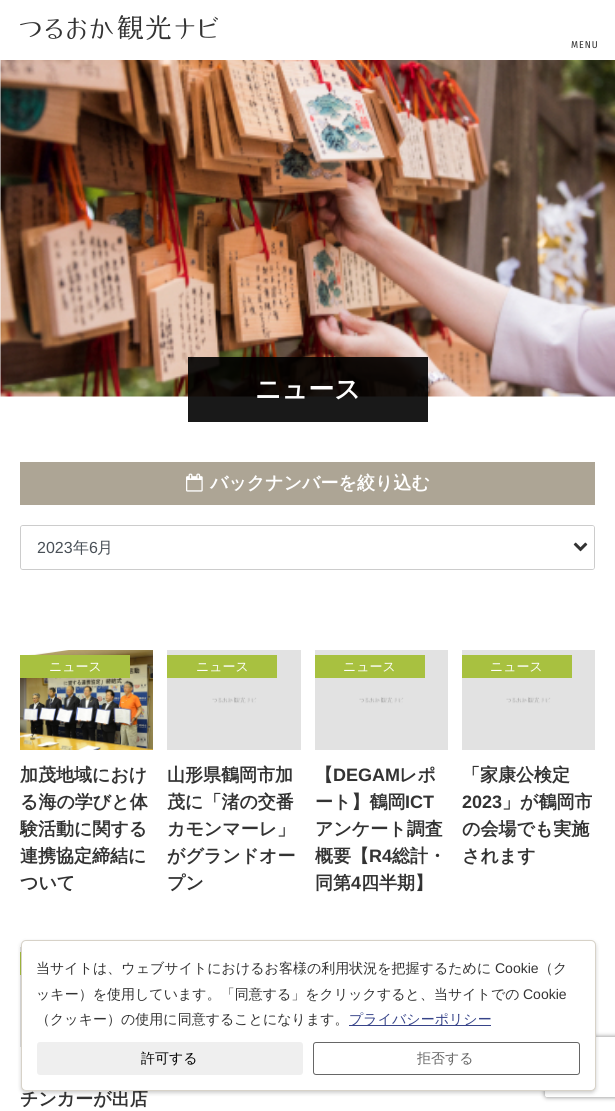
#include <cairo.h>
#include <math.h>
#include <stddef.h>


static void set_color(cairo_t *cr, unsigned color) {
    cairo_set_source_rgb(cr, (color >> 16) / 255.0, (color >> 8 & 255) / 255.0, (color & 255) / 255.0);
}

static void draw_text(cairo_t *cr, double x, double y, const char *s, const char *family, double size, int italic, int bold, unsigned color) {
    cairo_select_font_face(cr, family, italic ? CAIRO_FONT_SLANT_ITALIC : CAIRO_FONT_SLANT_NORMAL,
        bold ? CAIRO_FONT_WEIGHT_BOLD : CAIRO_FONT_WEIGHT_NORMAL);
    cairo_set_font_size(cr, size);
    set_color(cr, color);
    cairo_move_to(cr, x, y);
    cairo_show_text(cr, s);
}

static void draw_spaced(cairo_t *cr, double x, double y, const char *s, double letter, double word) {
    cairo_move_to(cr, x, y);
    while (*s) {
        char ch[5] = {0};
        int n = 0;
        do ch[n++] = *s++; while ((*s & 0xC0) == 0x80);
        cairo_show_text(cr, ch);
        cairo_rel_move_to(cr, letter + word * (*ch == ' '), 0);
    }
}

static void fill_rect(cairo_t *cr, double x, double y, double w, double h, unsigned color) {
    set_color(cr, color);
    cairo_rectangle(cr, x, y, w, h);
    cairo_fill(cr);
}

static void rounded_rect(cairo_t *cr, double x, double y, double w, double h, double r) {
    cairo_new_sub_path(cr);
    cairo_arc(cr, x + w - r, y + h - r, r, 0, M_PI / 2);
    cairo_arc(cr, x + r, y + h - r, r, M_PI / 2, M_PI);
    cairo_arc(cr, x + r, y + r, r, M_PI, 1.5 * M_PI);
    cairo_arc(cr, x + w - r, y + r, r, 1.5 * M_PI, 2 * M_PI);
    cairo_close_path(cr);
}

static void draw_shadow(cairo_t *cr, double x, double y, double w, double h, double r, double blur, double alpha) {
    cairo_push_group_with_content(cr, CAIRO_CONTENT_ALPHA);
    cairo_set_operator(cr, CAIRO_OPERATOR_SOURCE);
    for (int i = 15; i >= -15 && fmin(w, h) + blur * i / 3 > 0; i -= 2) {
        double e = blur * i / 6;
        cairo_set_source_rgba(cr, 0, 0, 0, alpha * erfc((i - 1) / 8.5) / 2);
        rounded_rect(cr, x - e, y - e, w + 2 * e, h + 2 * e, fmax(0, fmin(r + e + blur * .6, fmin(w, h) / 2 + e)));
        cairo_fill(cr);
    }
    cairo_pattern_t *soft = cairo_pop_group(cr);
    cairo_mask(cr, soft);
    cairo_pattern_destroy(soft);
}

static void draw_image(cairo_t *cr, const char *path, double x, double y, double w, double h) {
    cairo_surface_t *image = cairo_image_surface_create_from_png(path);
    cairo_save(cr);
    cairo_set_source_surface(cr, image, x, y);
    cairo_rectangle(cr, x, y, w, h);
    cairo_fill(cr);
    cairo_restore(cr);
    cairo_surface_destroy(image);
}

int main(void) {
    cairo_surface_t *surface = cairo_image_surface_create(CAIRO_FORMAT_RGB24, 615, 1111);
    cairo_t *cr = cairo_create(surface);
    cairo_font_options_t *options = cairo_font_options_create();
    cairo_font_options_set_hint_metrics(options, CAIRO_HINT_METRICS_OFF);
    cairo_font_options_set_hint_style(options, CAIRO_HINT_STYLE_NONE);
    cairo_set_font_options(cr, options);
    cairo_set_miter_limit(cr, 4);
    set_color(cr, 0xFFFFFF);
    cairo_paint(cr);
    draw_image(cr, "assets/img1.png", 20, 15, 198, 25);
    cairo_select_font_face(cr, "Fira Sans Condensed", CAIRO_FONT_SLANT_NORMAL, CAIRO_FONT_WEIGHT_NORMAL);
    cairo_set_font_size(cr, 10);
    set_color(cr, 0x333333);
    draw_spaced(cr, 571, 48, "MENU", 1, 0);
    draw_image(cr, "assets/img2.png", 0, 60, 615, 337);
    cairo_set_source_rgba(cr, 0, 0, 0, 0.9);
    cairo_rectangle(cr, 188, 357, 240, 65);
    cairo_fill(cr);
    draw_text(cr, 255, 398, "ニュース", "WenQuanYi Zen Hei", 26, 0, 1, 0xFFFFFF);
    fill_rect(cr, 20, 462, 575, 43, 0xADA595);
    draw_image(cr, "assets/img3.png", 186, 473, 17, 19);
    draw_text(cr, 210, 489, "バックナンバーを絞り込む", "WenQuanYi Zen Hei", 18, 0, 1, 0xFFFFFF);
    rounded_rect(cr, 20.5, 525.5, 574, 44, 2.5);
    set_color(cr, 0xCCCCCC);
    cairo_set_line_width(cr, 1);
    cairo_stroke(cr);
    set_color(cr, 0xFFFFFF);
    rounded_rect(cr, 21, 526, 573, 43, 2);
    cairo_fill(cr);
    draw_text(cr, 37, 553, "2023", "Liberation Sans", 16, 0, 0, 0x495057);
    draw_text(cr, 73, 553, "年", "WenQuanYi Zen Hei Medium", 16, 0, 0, 0x495057);
    draw_text(cr, 89, 553, "6", "Liberation Sans", 16, 0, 0, 0x495057);
    draw_text(cr, 97, 553, "月", "WenQuanYi Zen Hei Medium", 16, 0, 0, 0x495057);
    set_color(cr, 0xFFFFFF);
    cairo_new_path(cr);
    cairo_move_to(cr, 573, 526);
    cairo_line_to(cr, 592, 526);
    cairo_curve_to(cr, 593, 526, 594, 527, 594, 528);
    cairo_line_to(cr, 594, 567);
    cairo_curve_to(cr, 594, 568, 593, 569, 592, 569);
    cairo_line_to(cr, 573, 569);
    cairo_close_path(cr);
    cairo_fill(cr);
    draw_image(cr, "assets/img4.png", 573, 542, 15, 10);
    draw_image(cr, "assets/img5.png", 20, 650, 133, 100);
    fill_rect(cr, 20, 655, 110, 23, 0xA8C140);
    draw_text(cr, 49, 671, "ニュース", "WenQuanYi Zen Hei Medium", 13, 0, 0, 0xFFFFFF);
    draw_text(cr, 20, 781, "加茂地域におけ", "WenQuanYi Zen Hei", 18, 0, 1, 0x333333);
    draw_text(cr, 20, 808, "る海の学びと体", "WenQuanYi Zen Hei", 18, 0, 1, 0x333333);
    draw_text(cr, 20, 835, "験活動に関する", "WenQuanYi Zen Hei", 18, 0, 1, 0x333333);
    draw_text(cr, 20, 862, "連携協定締結に", "WenQuanYi Zen Hei", 18, 0, 1, 0x333333);
    draw_text(cr, 20, 889, "ついて", "WenQuanYi Zen Hei", 18, 0, 1, 0x333333);
    draw_image(cr, "assets/img6.png", 167, 650, 134, 100);
    fill_rect(cr, 167, 655, 110, 23, 0xA8C140);
    draw_text(cr, 196, 671, "ニュース", "WenQuanYi Zen Hei Medium", 13, 0, 0, 0xFFFFFF);
    draw_text(cr, 167, 781, "山形県鶴岡市加", "WenQuanYi Zen Hei", 18, 0, 1, 0x333333);
    draw_text(cr, 167, 808, "茂に「渚の交番", "WenQuanYi Zen Hei", 18, 0, 1, 0x333333);
    draw_text(cr, 167, 835, "カモンマーレ」", "WenQuanYi Zen Hei", 18, 0, 1, 0x333333);
    draw_text(cr, 167, 862, "がグランドオー", "WenQuanYi Zen Hei", 18, 0, 1, 0x333333);
    draw_text(cr, 167, 889, "プン", "WenQuanYi Zen Hei", 18, 0, 1, 0x333333);
    draw_image(cr, "assets/img7.png", 315, 650, 133, 100);
    fill_rect(cr, 315, 655, 110, 23, 0xA8C140);
    draw_text(cr, 343, 671, "ニュース", "WenQuanYi Zen Hei Medium", 13, 0, 0, 0xFFFFFF);
    draw_text(cr, 315, 781, "【", "WenQuanYi Zen Hei", 18, 0, 1, 0x333333);
    draw_text(cr, 333, 781, "DEGAM", "Liberation Sans", 18, 0, 1, 0x333333);
    draw_text(cr, 399, 781, "レポ", "WenQuanYi Zen Hei", 18, 0, 1, 0x333333);
    draw_text(cr, 315, 808, "ート】鶴岡", "WenQuanYi Zen Hei", 18, 0, 1, 0x333333);
    draw_text(cr, 405, 808, "ICT", "Liberation Sans", 18, 0, 1, 0x333333);
    draw_text(cr, 315, 835, "アンケート調査", "WenQuanYi Zen Hei", 18, 0, 1, 0x333333);
    draw_text(cr, 315, 862, "概要【", "WenQuanYi Zen Hei", 18, 0, 1, 0x333333);
    draw_text(cr, 369, 862, "R4", "Liberation Sans", 18, 0, 1, 0x333333);
    draw_text(cr, 392, 862, "総計・", "WenQuanYi Zen Hei", 18, 0, 1, 0x333333);
    draw_text(cr, 315, 889, "同第", "WenQuanYi Zen Hei", 18, 0, 1, 0x333333);
    draw_text(cr, 351, 889, "4", "Liberation Sans", 18, 0, 1, 0x333333);
    draw_text(cr, 361, 889, "四半期】", "WenQuanYi Zen Hei", 18, 0, 1, 0x333333);
    draw_image(cr, "assets/img7.png", 462, 650, 133, 100);
    fill_rect(cr, 462, 655, 110, 23, 0xA8C140);
    draw_text(cr, 490, 671, "ニュース", "WenQuanYi Zen Hei Medium", 13, 0, 0, 0xFFFFFF);
    draw_text(cr, 462, 781, "「家康公検定", "WenQuanYi Zen Hei", 18, 0, 1, 0x333333);
    draw_text(cr, 462, 808, "2023", "Liberation Sans", 18, 0, 1, 0x333333);
    draw_text(cr, 502, 808, "」が鶴岡市", "WenQuanYi Zen Hei", 18, 0, 1, 0x333333);
    draw_text(cr, 462, 835, "の会場でも実施", "WenQuanYi Zen Hei", 18, 0, 1, 0x333333);
    draw_text(cr, 462, 862, "されます", "WenQuanYi Zen Hei", 18, 0, 1, 0x333333);
    draw_image(cr, "assets/img8.png", 20, 947, 1, 100);
    fill_rect(cr, 20, 952, 1, 23, 0xA8C140);
    draw_text(cr, 20, 1105, "チンカーが出店", "WenQuanYi Zen Hei", 18, 0, 1, 0x333333);
    set_color(cr, 0x000000);
    draw_shadow(cr, 21, 942, 575, 151, 5, 2, 0.2);
    cairo_save(cr);
    cairo_set_fill_rule(cr, CAIRO_FILL_RULE_EVEN_ODD);
    cairo_new_path(cr);
    cairo_move_to(cr, 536, 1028);
    cairo_line_to(cr, 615, 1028);
    cairo_line_to(cr, 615, 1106);
    cairo_line_to(cr, 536, 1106);
    cairo_close_path(cr);
    cairo_move_to(cr, 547, 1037);
    cairo_line_to(cr, 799, 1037);
    cairo_curve_to(cr, 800, 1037, 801, 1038, 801, 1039);
    cairo_line_to(cr, 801, 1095);
    cairo_curve_to(cr, 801, 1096, 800, 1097, 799, 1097);
    cairo_line_to(cr, 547, 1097);
    cairo_curve_to(cr, 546, 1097, 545, 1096, 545, 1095);
    cairo_line_to(cr, 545, 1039);
    cairo_curve_to(cr, 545, 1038, 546, 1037, 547, 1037);
    cairo_close_path(cr);
    cairo_clip(cr);
    set_color(cr, 0x808080);
    draw_shadow(cr, 545, 1037, 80, 60, 2, 2.5, 1);
    cairo_restore(cr);
    set_color(cr, 0xFFFFFF);
    rounded_rect(cr, 21.5, 940.5, 574, 150, 4.5);
    cairo_fill_preserve(cr);
    set_color(cr, 0xD7D2C8);
    cairo_stroke(cr);
    draw_text(cr, 36, 973, "当サイトは、ウェブサイトにおけるお客様の利用状況を把握するために", "WenQuanYi Zen Hei Medium", 14, 0, 0, 0x333333);
    draw_text(cr, 495, 973, "Cookie", "Liberation Sans", 14, 0, 0, 0x333333);
    draw_text(cr, 539, 973, "（ク", "WenQuanYi Zen Hei Medium", 14, 0, 0, 0x333333);
    draw_text(cr, 36, 999, "ッキー）を使用しています。「同意する」をクリックすると、当サイトでの", "WenQuanYi Zen Hei Medium", 14, 0, 0, 0x333333);
    draw_text(cr, 523, 999, "Cookie", "Liberation Sans", 14, 0, 0, 0x333333);
    draw_text(cr, 36, 1024, "（クッキー）の使用に同意することになります。", "WenQuanYi Zen Hei Medium", 14, 0, 0, 0x333333);
    fill_rect(cr, 349, 1025, 142, 1, 0x374489);
    draw_text(cr, 349, 1024, "プライバシーポリシー", "WenQuanYi Zen Hei Medium", 14, 0, 0, 0x374489);
    set_color(cr, 0xEFEFEF);
    rounded_rect(cr, 37, 1042, 266, 33, 3);
    cairo_fill(cr);
    draw_text(cr, 141, 1063, "許可する", "WenQuanYi Zen Hei Medium", 14, 0, 0, 0x000000);
    rounded_rect(cr, 313.5, 1042.5, 266, 32, 2.5);
    set_color(cr, 0x666666);
    cairo_stroke(cr);
    draw_text(cr, 417, 1063, "拒否する", "WenQuanYi Zen Hei Medium", 14, 0, 0, 0x666666);
    cairo_surface_write_to_png(surface, "output.png");
    cairo_font_options_destroy(options);
    cairo_destroy(cr);
    cairo_surface_destroy(surface);
    return 0;
}
